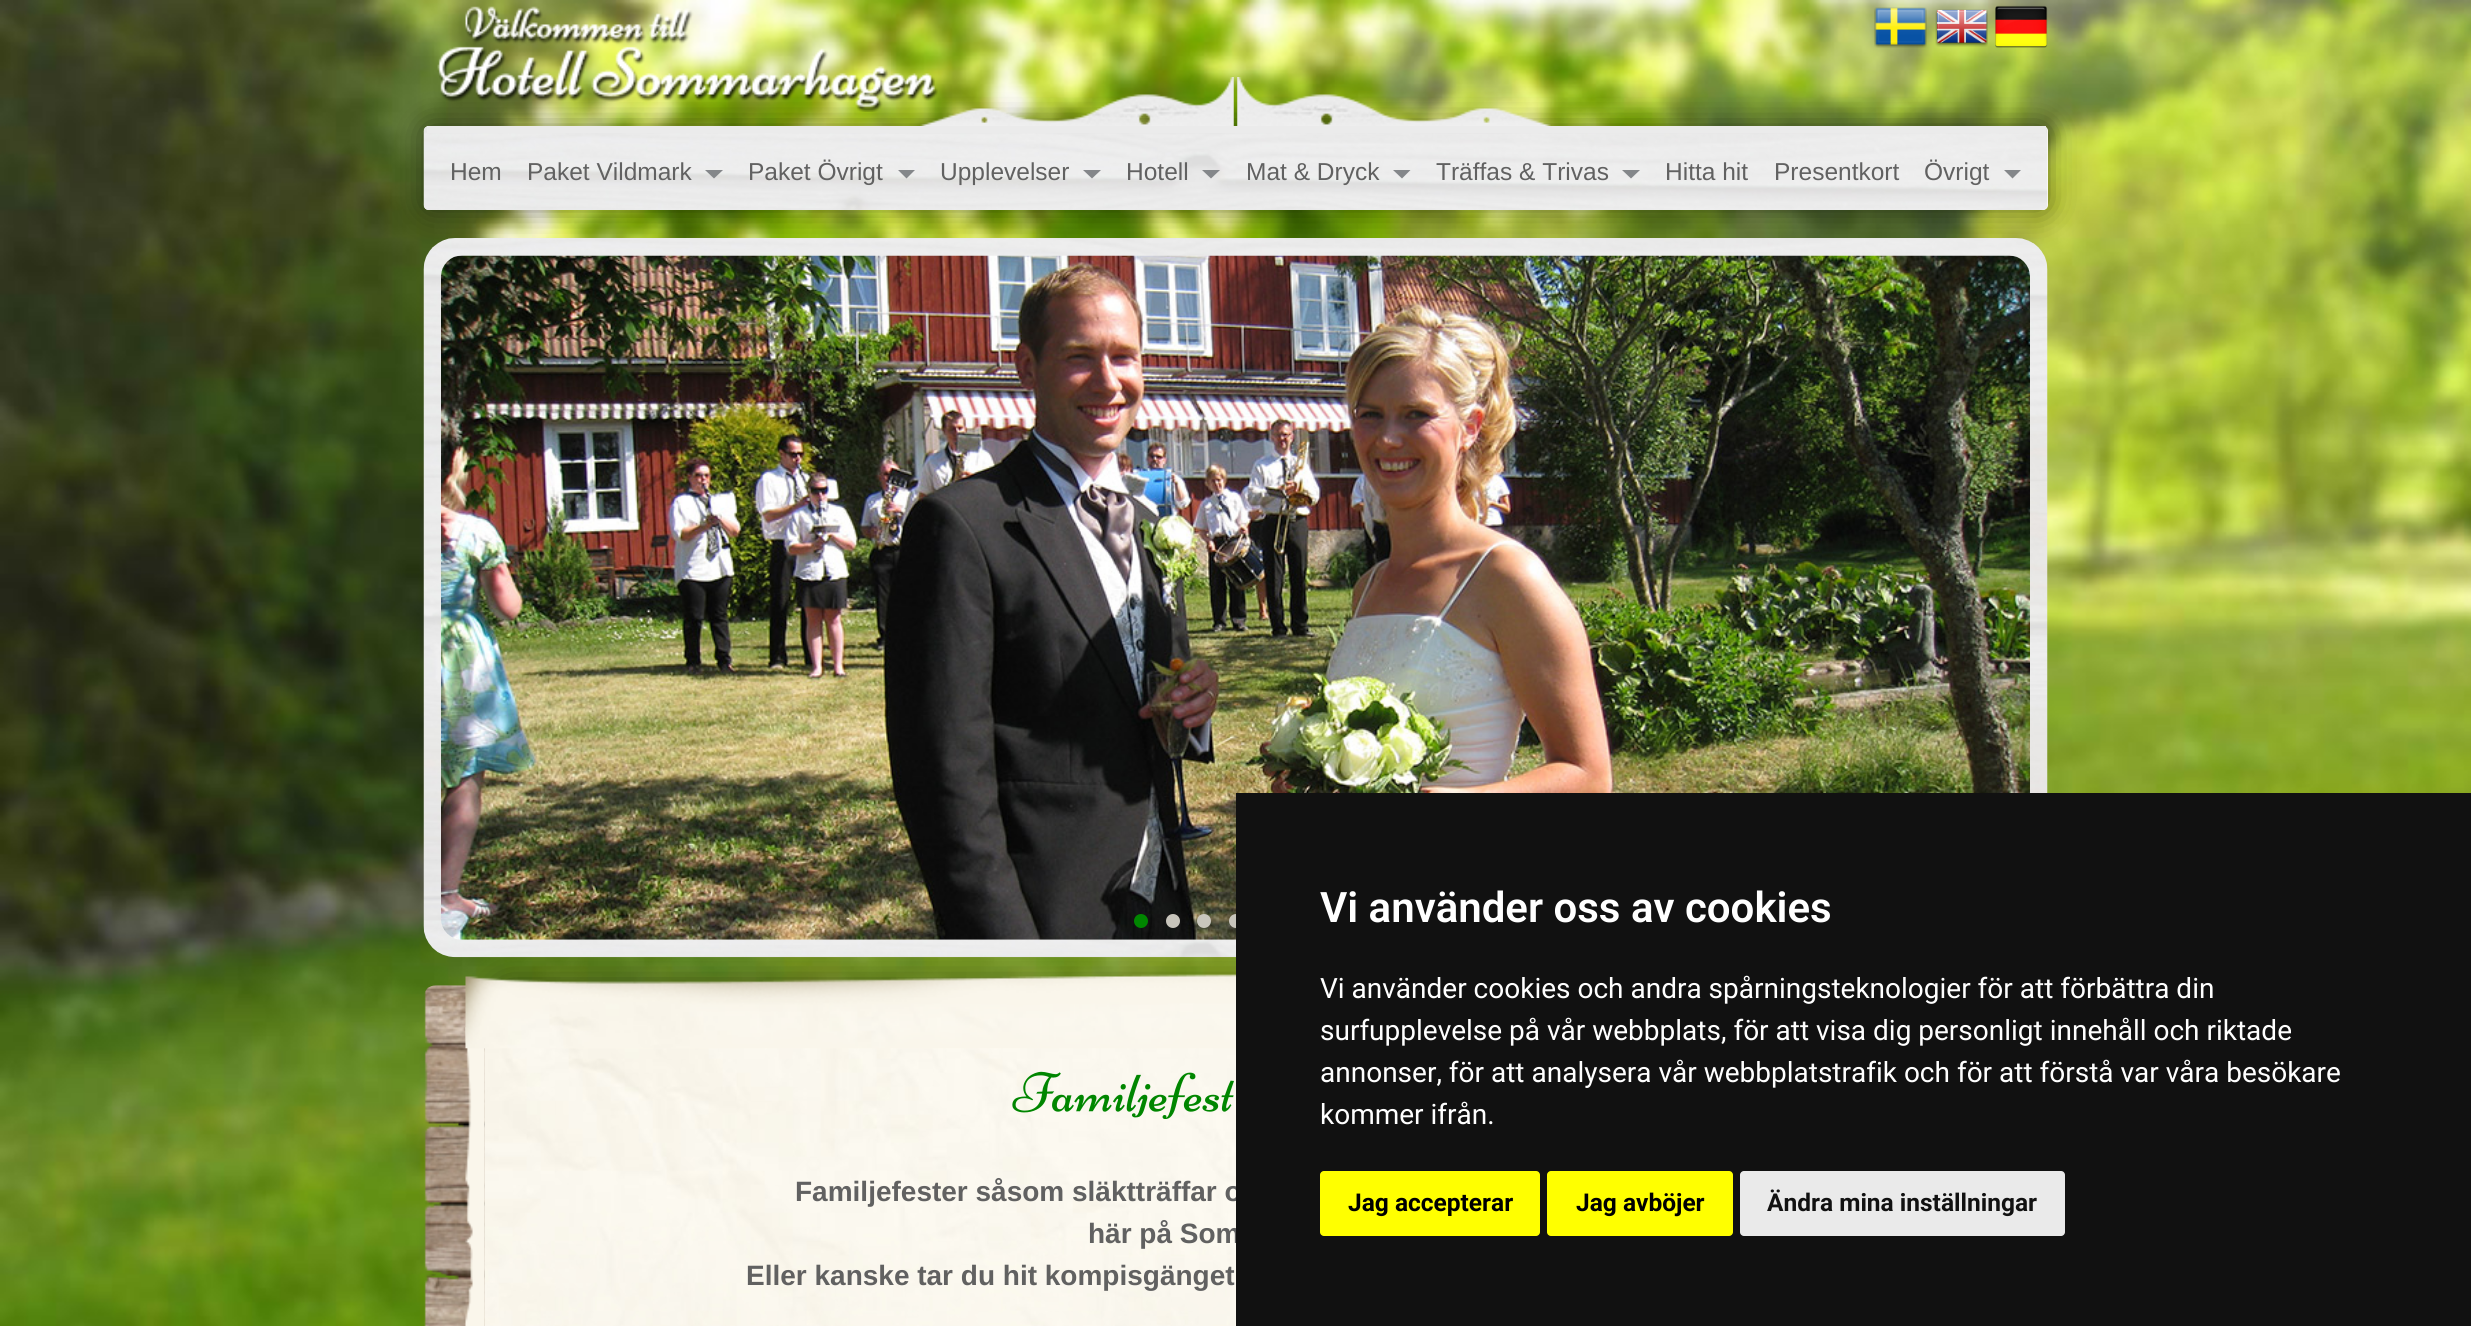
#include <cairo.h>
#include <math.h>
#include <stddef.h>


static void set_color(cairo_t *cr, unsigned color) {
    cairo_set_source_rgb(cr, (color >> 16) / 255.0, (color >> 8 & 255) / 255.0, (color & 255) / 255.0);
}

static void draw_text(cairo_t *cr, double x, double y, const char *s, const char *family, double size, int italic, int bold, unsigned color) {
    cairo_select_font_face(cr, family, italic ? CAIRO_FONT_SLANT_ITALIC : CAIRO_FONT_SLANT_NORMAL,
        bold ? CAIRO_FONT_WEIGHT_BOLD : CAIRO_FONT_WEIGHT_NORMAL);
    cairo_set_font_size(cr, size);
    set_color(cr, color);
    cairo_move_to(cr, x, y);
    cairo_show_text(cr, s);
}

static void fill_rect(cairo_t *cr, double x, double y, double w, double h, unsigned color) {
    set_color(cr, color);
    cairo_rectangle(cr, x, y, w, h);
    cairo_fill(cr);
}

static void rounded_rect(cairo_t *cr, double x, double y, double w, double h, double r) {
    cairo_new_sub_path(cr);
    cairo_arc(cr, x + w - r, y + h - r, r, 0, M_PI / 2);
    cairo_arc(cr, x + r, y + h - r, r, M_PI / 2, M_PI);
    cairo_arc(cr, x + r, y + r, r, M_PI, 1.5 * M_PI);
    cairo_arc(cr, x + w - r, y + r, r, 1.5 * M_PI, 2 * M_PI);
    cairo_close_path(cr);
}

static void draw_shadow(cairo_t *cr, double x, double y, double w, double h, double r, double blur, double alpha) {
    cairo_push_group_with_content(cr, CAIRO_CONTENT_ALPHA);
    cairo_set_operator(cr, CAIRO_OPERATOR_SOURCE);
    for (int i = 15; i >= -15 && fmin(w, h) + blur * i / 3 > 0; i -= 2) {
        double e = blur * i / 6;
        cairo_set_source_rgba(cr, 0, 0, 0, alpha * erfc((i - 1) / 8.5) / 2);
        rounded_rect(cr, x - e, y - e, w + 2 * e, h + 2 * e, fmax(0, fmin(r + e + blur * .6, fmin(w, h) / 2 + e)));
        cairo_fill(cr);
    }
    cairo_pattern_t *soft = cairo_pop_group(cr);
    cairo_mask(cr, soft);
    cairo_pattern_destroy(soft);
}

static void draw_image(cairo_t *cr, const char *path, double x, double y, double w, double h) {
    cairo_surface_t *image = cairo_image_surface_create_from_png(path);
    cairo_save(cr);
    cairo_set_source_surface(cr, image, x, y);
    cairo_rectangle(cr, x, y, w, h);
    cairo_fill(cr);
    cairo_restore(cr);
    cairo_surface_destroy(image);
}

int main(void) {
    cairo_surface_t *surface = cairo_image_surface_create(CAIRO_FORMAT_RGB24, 2471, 1326);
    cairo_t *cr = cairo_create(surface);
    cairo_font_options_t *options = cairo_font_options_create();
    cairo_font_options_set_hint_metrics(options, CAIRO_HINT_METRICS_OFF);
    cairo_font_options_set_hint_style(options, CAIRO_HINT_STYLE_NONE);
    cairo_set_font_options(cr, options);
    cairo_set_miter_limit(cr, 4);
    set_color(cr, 0xFFFFFF);
    cairo_paint(cr);
    draw_image(cr, "assets/img1.png", 0, 0, 2471, 1326);
    draw_image(cr, "assets/img2.png", 437, 6, 501, 106);
    draw_image(cr, "assets/img3.png", 1874, 7, 53, 41);
    draw_image(cr, "assets/img4.png", 1935, 9, 53, 38);
    draw_image(cr, "assets/img5.png", 1995, 5, 53, 43);
    set_color(cr, 0x000000);
    draw_shadow(cr, 424, 126, 1624, 84, 5, 16, 0.5);
    set_color(cr, 0xFFFCF4);
    rounded_rect(cr, 424, 126, 1624, 84, 5);
    cairo_fill(cr);
    draw_image(cr, "assets/img6.png", 423, 126, 1625, 84);
    fill_rect(cr, 427, 126, 1619, 7, 0xEBEBEB);
    draw_image(cr, "assets/img7.png", 920, 77, 314, 49);
    draw_image(cr, "assets/img8.png", 1237, 77, 314, 49);
    draw_text(cr, 450, 180, "Hem", "Liberation Sans", 24.5, 0, 0, 0x616161);
    draw_text(cr, 527, 180, "Paket Vildmark", "Liberation Sans", 24.5, 0, 0, 0x616161);
    set_color(cr, 0x84878A);
    cairo_new_path(cr);
    cairo_move_to(cr, 705, 170);
    cairo_line_to(cr, 723, 170);
    cairo_line_to(cr, 714, 178.5);
    cairo_close_path(cr);
    cairo_fill(cr);
    draw_text(cr, 748, 180, "Paket Övrigt", "Liberation Sans", 24.5, 0, 0, 0x616161);
    set_color(cr, 0x84878A);
    cairo_new_path(cr);
    cairo_move_to(cr, 898, 170);
    cairo_line_to(cr, 915, 170);
    cairo_line_to(cr, 906.5, 178.5);
    cairo_close_path(cr);
    cairo_fill(cr);
    draw_text(cr, 940, 180, "Upplevelser", "Liberation Sans", 24.5, 0, 0, 0x616161);
    set_color(cr, 0x84878A);
    cairo_new_path(cr);
    cairo_move_to(cr, 1083, 170);
    cairo_line_to(cr, 1101, 170);
    cairo_line_to(cr, 1092, 178.5);
    cairo_close_path(cr);
    cairo_fill(cr);
    draw_text(cr, 1126, 180, "Hotell", "Liberation Sans", 24.5, 0, 0, 0x616161);
    set_color(cr, 0x84878A);
    cairo_new_path(cr);
    cairo_move_to(cr, 1202, 170);
    cairo_line_to(cr, 1220, 170);
    cairo_line_to(cr, 1211, 178.5);
    cairo_close_path(cr);
    cairo_fill(cr);
    draw_text(cr, 1246, 180, "Mat & Dryck", "Liberation Sans", 24.5, 0, 0, 0x616161);
    set_color(cr, 0x84878A);
    cairo_new_path(cr);
    cairo_move_to(cr, 1393, 170);
    cairo_line_to(cr, 1410.5, 170);
    cairo_line_to(cr, 1402, 178.5);
    cairo_close_path(cr);
    cairo_fill(cr);
    draw_text(cr, 1436, 180, "Träffas & Trivas", "Liberation Sans", 24.5, 0, 0, 0x616161);
    set_color(cr, 0x84878A);
    cairo_new_path(cr);
    cairo_move_to(cr, 1622, 170);
    cairo_line_to(cr, 1640, 170);
    cairo_line_to(cr, 1631, 178.5);
    cairo_close_path(cr);
    cairo_fill(cr);
    draw_text(cr, 1665, 180, "Hitta hit", "Liberation Sans", 24.5, 0, 0, 0x616161);
    draw_text(cr, 1774, 180, "Presentkort", "Liberation Sans", 24.5, 0, 0, 0x616161);
    draw_text(cr, 1924, 180, "Övrigt", "Liberation Sans", 24.5, 0, 0, 0x616161);
    set_color(cr, 0x84878A);
    cairo_new_path(cr);
    cairo_move_to(cr, 2004, 170);
    cairo_line_to(cr, 2021, 170);
    cairo_line_to(cr, 2012.5, 178.5);
    cairo_close_path(cr);
    cairo_fill(cr);
    draw_image(cr, "assets/img9.png", 423, 238, 1625, 720);
    set_color(cr, 0x000000);
    draw_shadow(cr, 497, 985, 1540, 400, 11, 16, 0.5);
    draw_image(cr, "assets/img10.png", 441, 255, 1589, 685);
    set_color(cr, 0xC8C5BC);
    cairo_arc(cr, 1236, 921, 7, 0, 2 * M_PI);
    cairo_fill(cr);
    draw_image(cr, "assets/img11.png", 484, 1048, 1, 278);
    draw_image(cr, "assets/img12.png", 424, 985, 61, 341);
    draw_image(cr, "assets/img13.png", 465, 1027, 20, 299);
    draw_image(cr, "assets/img15.png", 484, 1048, 752, 278);
    draw_text(cr, 795, 1201, "Familjefester såsom släktträffar o", "Liberation Sans", 28, 0, 1, 0x616161);
    draw_text(cr, 1088, 1243, "här på Som", "Liberation Sans", 28, 0, 1, 0x616161);
    fill_rect(cr, 1236, 793, 1235, 533, 0x111111);
    draw_text(cr, 1320, 922, "Vi använder oss av cookies", "Roboto SemiBold", 42, 0, 0, 0xFFFFFF);
    draw_text(cr, 1320, 998, "Vi använder cookies och andra spårningsteknologier för att förbättra din", "Roboto", 28, 0, 0, 0xFFFFFF);
    draw_text(cr, 1320, 1040, "surfupplevelse på vår webbplats, för att visa dig personligt innehåll och riktade", "Roboto", 28, 0, 0, 0xFFFFFF);
    draw_text(cr, 1320, 1082, "annonser, för att analysera vår webbplatstrafik och för att förstå var våra besökare", "Roboto", 28, 0, 0, 0xFFFFFF);
    draw_text(cr, 1320, 1124, "kommer ifrån.", "Roboto", 28, 0, 0, 0xFFFFFF);
    set_color(cr, 0xFFFF00);
    rounded_rect(cr, 1320, 1171, 220, 65, 4);
    cairo_fill(cr);
    draw_text(cr, 1348, 1211, "Jag accepterar", "Roboto", 24.5, 0, 1, 0x000000);
    set_color(cr, 0xFFFF00);
    rounded_rect(cr, 1547, 1171, 186, 65, 4);
    cairo_fill(cr);
    draw_text(cr, 1576, 1211, "Jag avböjer", "Roboto", 24.5, 0, 1, 0x000000);
    set_color(cr, 0xEAEAEA);
    rounded_rect(cr, 1740, 1171, 325, 65, 4);
    cairo_fill(cr);
    draw_text(cr, 1767, 1211, "Ändra mina inställningar", "Roboto", 24.5, 0, 1, 0x111111);
    set_color(cr, 0x008600);
    cairo_new_path(cr);
    cairo_arc(cr, 1141, 921, 7, 0, 2 * M_PI);
    cairo_fill(cr);
    set_color(cr, 0xC8C5BC);
    cairo_arc(cr, 1173, 921, 7, 0, 2 * M_PI);
    cairo_fill(cr);
    cairo_arc(cr, 1204, 921, 7, 0, 2 * M_PI);
    cairo_fill(cr);
    draw_image(cr, "assets/img14.png", 465, 974, 771, 75);
    draw_image(cr, "assets/img16.png", 1012, 1071, 222, 48);
    draw_text(cr, 746, 1285, "Eller kanske tar du hit kompisgänget", "Liberation Sans", 28, 0, 1, 0x616161);
    cairo_surface_write_to_png(surface, "output.png");
    cairo_font_options_destroy(options);
    cairo_destroy(cr);
    cairo_surface_destroy(surface);
    return 0;
}
